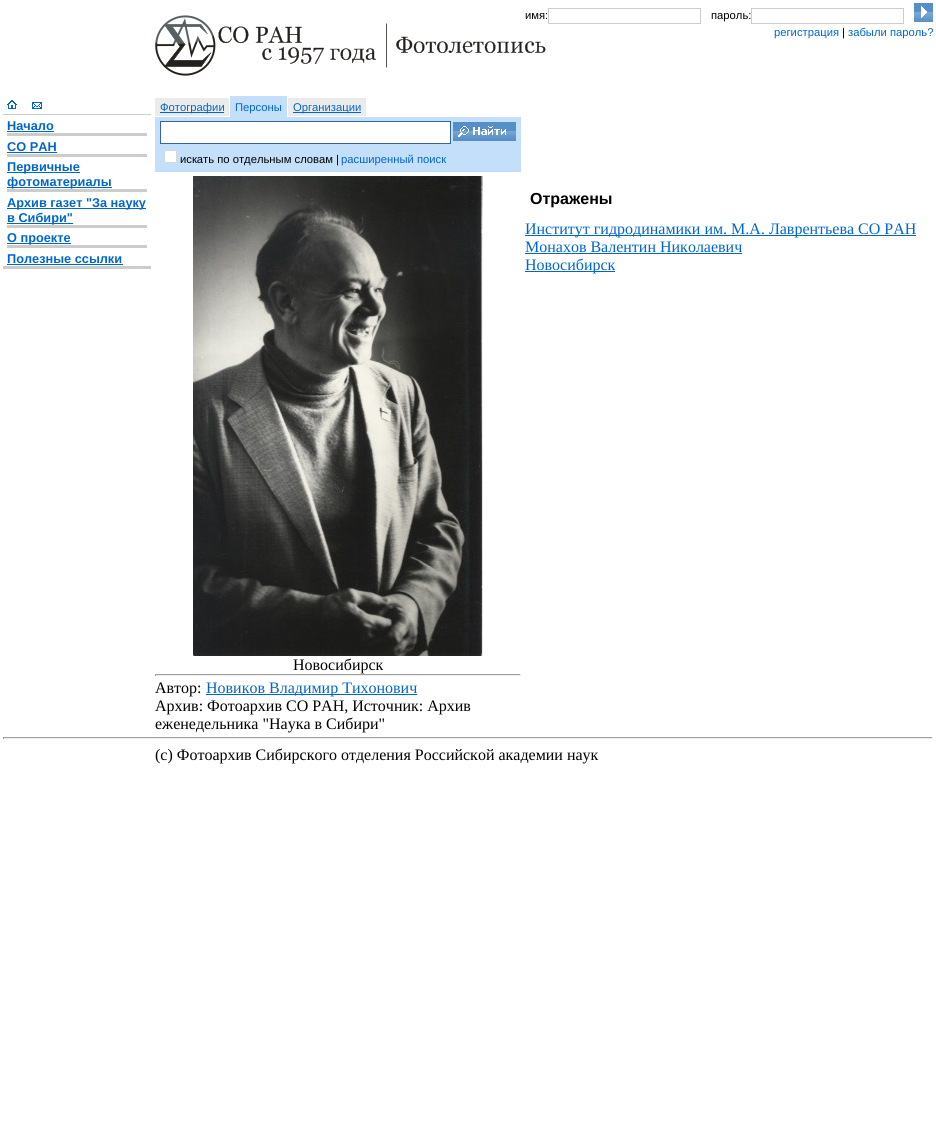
#include <cairo.h>
#include <math.h>
#include <stddef.h>


static void set_color(cairo_t *cr, unsigned color) {
    cairo_set_source_rgb(cr, (color >> 16) / 255.0, (color >> 8 & 255) / 255.0, (color & 255) / 255.0);
}

static void draw_text(cairo_t *cr, double x, double y, const char *s, const char *family, double size, int italic, int bold, unsigned color) {
    cairo_select_font_face(cr, family, italic ? CAIRO_FONT_SLANT_ITALIC : CAIRO_FONT_SLANT_NORMAL,
        bold ? CAIRO_FONT_WEIGHT_BOLD : CAIRO_FONT_WEIGHT_NORMAL);
    cairo_set_font_size(cr, size);
    set_color(cr, color);
    cairo_move_to(cr, x, y);
    cairo_show_text(cr, s);
}

static void fill_rect(cairo_t *cr, double x, double y, double w, double h, unsigned color) {
    set_color(cr, color);
    cairo_rectangle(cr, x, y, w, h);
    cairo_fill(cr);
}

static void rounded_rect(cairo_t *cr, double x, double y, double w, double h, double r) {
    cairo_new_sub_path(cr);
    cairo_arc(cr, x + w - r, y + h - r, r, 0, M_PI / 2);
    cairo_arc(cr, x + r, y + h - r, r, M_PI / 2, M_PI);
    cairo_arc(cr, x + r, y + r, r, M_PI, 1.5 * M_PI);
    cairo_arc(cr, x + w - r, y + r, r, 1.5 * M_PI, 2 * M_PI);
    cairo_close_path(cr);
}

static void draw_image(cairo_t *cr, const char *path, double x, double y, double w, double h) {
    cairo_surface_t *image = cairo_image_surface_create_from_png(path);
    cairo_save(cr);
    cairo_set_source_surface(cr, image, x, y);
    cairo_rectangle(cr, x, y, w, h);
    cairo_fill(cr);
    cairo_restore(cr);
    cairo_surface_destroy(image);
}

int main(void) {
    cairo_surface_t *surface = cairo_image_surface_create(CAIRO_FORMAT_RGB24, 936, 1123);
    cairo_t *cr = cairo_create(surface);
    cairo_font_options_t *options = cairo_font_options_create();
    cairo_font_options_set_hint_metrics(options, CAIRO_HINT_METRICS_OFF);
    cairo_font_options_set_hint_style(options, CAIRO_HINT_STYLE_NONE);
    cairo_set_font_options(cr, options);
    cairo_set_miter_limit(cr, 4);
    set_color(cr, 0xFFFFFF);
    cairo_paint(cr);
    draw_image(cr, "assets/img1.png", 155, 15, 391, 61);
    draw_text(cr, 525, 19, "имя:", "Liberation Sans", 11.25, 0, 0, 0x000000);
    cairo_rectangle(cr, 548.5, 8.5, 152, 15);
    set_color(cr, 0xCCCCCC);
    cairo_set_line_width(cr, 1);
    cairo_stroke(cr);
    draw_text(cr, 711, 19, "пароль:", "Liberation Sans", 11.25, 0, 0, 0x000000);
    cairo_rectangle(cr, 751.5, 8.5, 152, 15);
    set_color(cr, 0xCCCCCC);
    cairo_stroke(cr);
    draw_image(cr, "assets/img2.png", 914, 3, 19, 19);
    draw_text(cr, 774, 36, "регистрация", "Liberation Sans", 11.25, 0, 0, 0x0066CC);
    draw_text(cr, 842, 36, "|", "Liberation Sans", 11.25, 0, 0, 0x000000);
    draw_text(cr, 848, 36, "забыли пароль?", "Liberation Sans", 11.25, 0, 0, 0x0066CC);
    draw_image(cr, "assets/img3.png", 7, 100, 10, 9);
    draw_image(cr, "assets/img4.png", 32, 102, 10, 7);
    fill_rect(cr, 3, 114, 148, 1, 0xCCCCCC);
    draw_text(cr, 7, 130, "Начало", "Liberation Sans", 12.75, 0, 1, 0x0066CC);
    fill_rect(cr, 7, 131, 47, 1, 0x0066CC);
    fill_rect(cr, 7, 133, 140, 3, 0xCCCCCC);
    draw_text(cr, 7, 151, "СО РАН", "Liberation Sans", 12.75, 0, 1, 0x0066CC);
    fill_rect(cr, 7, 152, 50, 1, 0x0066CC);
    fill_rect(cr, 7, 154, 140, 3, 0xCCCCCC);
    fill_rect(cr, 7, 172, 73, 1, 0x0066CC);
    draw_text(cr, 7, 171, "Первичные", "Liberation Sans", 12.75, 0, 1, 0x0066CC);
    fill_rect(cr, 7, 187, 105, 1, 0x0066CC);
    draw_text(cr, 7, 186, "фотоматериалы", "Liberation Sans", 12.75, 0, 1, 0x0066CC);
    fill_rect(cr, 7, 189, 140, 3, 0xCCCCCC);
    fill_rect(cr, 7, 208, 139, 1, 0x0066CC);
    draw_text(cr, 7, 207, "Архив газет \"За науку", "Liberation Sans", 12.75, 0, 1, 0x0066CC);
    fill_rect(cr, 7, 223, 66, 1, 0x0066CC);
    draw_text(cr, 7, 222, "в Сибири\"", "Liberation Sans", 12.75, 0, 1, 0x0066CC);
    fill_rect(cr, 7, 225, 140, 3, 0xCCCCCC);
    fill_rect(cr, 7, 243, 64, 1, 0x0066CC);
    draw_text(cr, 7, 242, "О проекте", "Liberation Sans", 12.75, 0, 1, 0x0066CC);
    fill_rect(cr, 7, 245, 140, 3, 0xCCCCCC);
    draw_text(cr, 7, 263, "Полезные ссылки", "Liberation Sans", 12.75, 0, 1, 0x0066CC);
    fill_rect(cr, 7, 264, 116, 1, 0x0066CC);
    fill_rect(cr, 3, 266, 148, 3, 0xCCCCCC);
    fill_rect(cr, 155, 98, 74, 18, 0xEBEBEB);
    fill_rect(cr, 160, 112, 64, 1, 0x0066CC);
    draw_text(cr, 160, 111, "Фотографии", "Liberation Sans", 11.25, 0, 0, 0x0066CC);
    fill_rect(cr, 230, 96, 57, 21, 0xC4DFFA);
    draw_text(cr, 235, 111, "Персоны", "Liberation Sans", 11.25, 0, 0, 0x0066CC);
    fill_rect(cr, 288, 98, 78, 18, 0xEBEBEB);
    fill_rect(cr, 293, 112, 68, 1, 0x0066CC);
    draw_text(cr, 293, 111, "Организации", "Liberation Sans", 11.25, 0, 0, 0x0066CC);
    fill_rect(cr, 155, 117, 366, 55, 0xC4DFFA);
    set_color(cr, 0xFFFFFF);
    cairo_rectangle(cr, 160.5, 121.5, 290, 22);
    cairo_fill_preserve(cr);
    set_color(cr, 0x336699);
    cairo_stroke(cr);
    draw_image(cr, "assets/img5.png", 453, 122, 63, 19);
    set_color(cr, 0xFFFFFF);
    rounded_rect(cr, 164, 150, 13, 13, 2);
    cairo_fill(cr);
    rounded_rect(cr, 164.5, 150.5, 12, 12, 1.5);
    cairo_set_source_rgba(cr, 0.463, 0.463, 0.463, 0.3);
    cairo_stroke(cr);
    draw_text(cr, 180, 163, "искать по отдельным словам |", "Liberation Sans", 11.25, 0, 0, 0x000000);
    draw_text(cr, 341, 163, "расширенный поиск", "Liberation Sans", 11.25, 0, 0, 0x0066CC);
    draw_text(cr, 530, 204, "Отражены", "Liberation Sans", 16, 0, 1, 0x000000);
    fill_rect(cr, 525, 235, 391, 1, 0x0066CC);
    draw_text(cr, 525, 234, "Институт гидродинамики им. М.А. Лаврентьева СО РАН", "Liberation Serif", 16, 0, 0, 0x0066CC);
    draw_text(cr, 525, 252, "Монахов Валентин Николаевич", "Liberation Serif", 16, 0, 0, 0x0066CC);
    fill_rect(cr, 525, 253, 217, 1, 0x0066CC);
    fill_rect(cr, 525, 271, 90, 1, 0x0066CC);
    draw_text(cr, 525, 270, "Новосибирск", "Liberation Serif", 16, 0, 0, 0x0066CC);
    draw_image(cr, "assets/img6.png", 193, 176, 290, 480);
    draw_text(cr, 293, 670, "Новосибирск", "Liberation Serif", 16, 0, 0, 0x000000);
    fill_rect(cr, 155, 674, 366, 1, 0x9F9F9F);
    fill_rect(cr, 520, 674, 1, 2, 0xEEEEEE);
    fill_rect(cr, 155, 675, 366, 1, 0xEEEEEE);
    fill_rect(cr, 155, 674, 1, 2, 0x9F9F9F);
    draw_text(cr, 155, 693, "Автор:", "Liberation Serif", 16, 0, 0, 0x000000);
    fill_rect(cr, 206, 694, 211, 1, 0x0066CC);
    draw_text(cr, 206, 693, "Новиков Владимир Тихонович", "Liberation Serif", 16, 0, 0, 0x0066CC);
    draw_text(cr, 155, 711, "Архив: Фотоархив СО РАН, Источник: Архив", "Liberation Serif", 16, 0, 0, 0x000000);
    draw_text(cr, 155, 729, "еженедельника \"Наука в Сибири\"", "Liberation Serif", 16, 0, 0, 0x000000);
    fill_rect(cr, 3, 737, 930, 1, 0x9F9F9F);
    fill_rect(cr, 932, 737, 1, 2, 0xEEEEEE);
    fill_rect(cr, 3, 738, 930, 1, 0xEEEEEE);
    fill_rect(cr, 3, 737, 1, 2, 0x9F9F9F);
    draw_text(cr, 155, 760, "(c) Фотоархив Сибирского отделения Российской академии наук", "Liberation Serif", 16, 0, 0, 0x000000);
    cairo_surface_write_to_png(surface, "output.png");
    cairo_font_options_destroy(options);
    cairo_destroy(cr);
    cairo_surface_destroy(surface);
    return 0;
}
